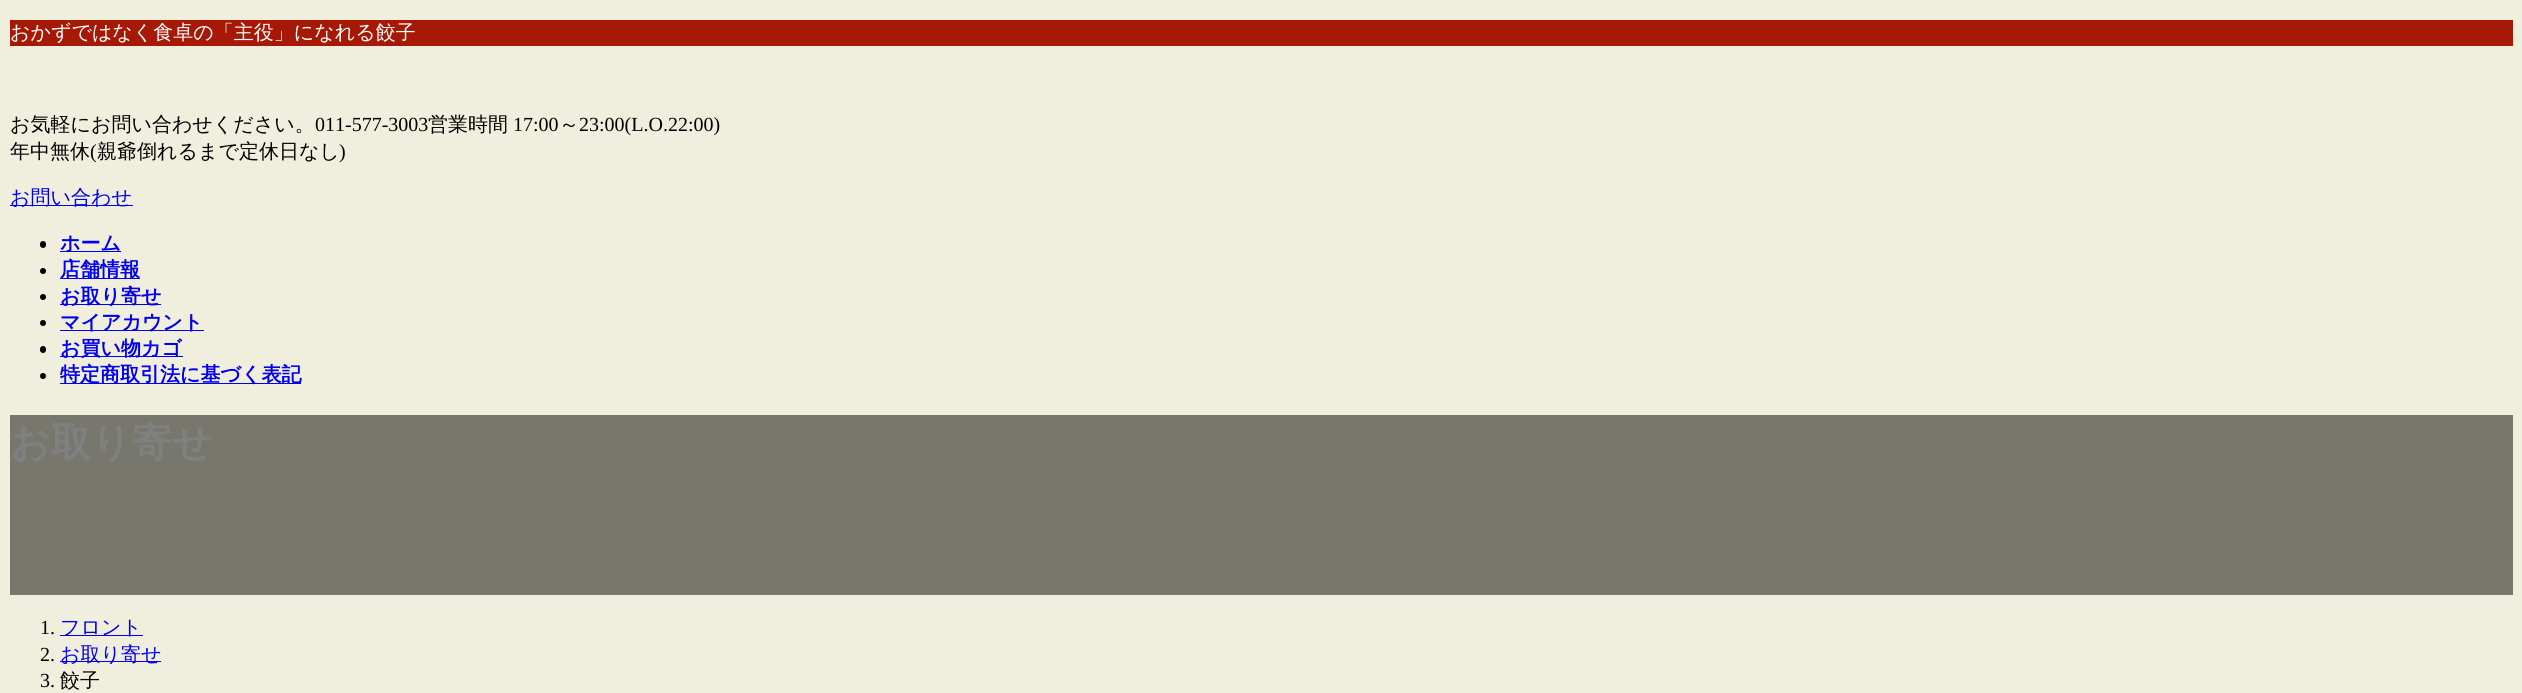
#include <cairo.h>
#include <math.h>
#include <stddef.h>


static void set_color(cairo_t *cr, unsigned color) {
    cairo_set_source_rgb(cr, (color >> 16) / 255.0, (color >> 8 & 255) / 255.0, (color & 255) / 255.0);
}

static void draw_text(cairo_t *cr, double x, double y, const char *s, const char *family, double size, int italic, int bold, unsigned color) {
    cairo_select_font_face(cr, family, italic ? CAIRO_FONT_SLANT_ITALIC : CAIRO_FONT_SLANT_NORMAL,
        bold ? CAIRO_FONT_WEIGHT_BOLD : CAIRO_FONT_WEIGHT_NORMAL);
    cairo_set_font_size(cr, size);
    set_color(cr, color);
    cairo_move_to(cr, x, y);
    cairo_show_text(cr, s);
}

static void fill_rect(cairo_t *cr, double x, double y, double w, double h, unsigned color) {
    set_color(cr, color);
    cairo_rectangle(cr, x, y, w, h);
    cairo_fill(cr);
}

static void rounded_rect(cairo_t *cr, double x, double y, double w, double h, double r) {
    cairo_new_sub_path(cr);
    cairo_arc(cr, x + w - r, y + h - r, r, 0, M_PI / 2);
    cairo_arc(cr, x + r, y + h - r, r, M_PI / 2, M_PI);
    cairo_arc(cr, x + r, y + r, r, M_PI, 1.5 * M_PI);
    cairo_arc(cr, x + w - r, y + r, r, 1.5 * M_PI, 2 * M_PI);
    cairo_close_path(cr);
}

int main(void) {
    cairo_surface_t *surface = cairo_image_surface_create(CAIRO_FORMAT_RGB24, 2522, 693);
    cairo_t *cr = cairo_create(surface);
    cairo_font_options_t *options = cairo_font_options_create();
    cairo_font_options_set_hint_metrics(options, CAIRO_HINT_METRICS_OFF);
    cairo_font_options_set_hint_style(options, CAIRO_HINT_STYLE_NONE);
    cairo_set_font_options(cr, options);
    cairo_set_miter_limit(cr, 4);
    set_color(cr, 0xF0EEDC);
    cairo_paint(cr);
    fill_rect(cr, 10, 415, 2503, 180, 0x78776E);
    fill_rect(cr, 10, 20, 2503, 26, 0xA51906);
    draw_text(cr, 10, 39, "おかずではなく食卓の「主役」になれる餃子", "WenQuanYi Zen Hei Medium", 20, 0, 0, 0xFFFFFF);
    draw_text(cr, 10, 131, "お気軽にお問い合わせください。", "WenQuanYi Zen Hei Medium", 20, 0, 0, 0x000000);
    draw_text(cr, 315, 131, "011-577-3003", "Liberation Serif", 20, 0, 0, 0x000000);
    draw_text(cr, 428, 131, "営業時間", "WenQuanYi Zen Hei Medium", 20, 0, 0, 0x000000);
    draw_text(cr, 513, 131, "17:00", "Liberation Serif", 20, 0, 0, 0x000000);
    draw_text(cr, 559, 131, "～", "WenQuanYi Zen Hei Medium", 20, 0, 0, 0x000000);
    draw_text(cr, 579, 131, "23:00(L.O.22:00)", "Liberation Serif", 20, 0, 0, 0x000000);
    draw_text(cr, 10, 158, "年中無休", "WenQuanYi Zen Hei Medium", 20, 0, 0, 0x000000);
    draw_text(cr, 90, 158, "(", "Liberation Serif", 20, 0, 0, 0x000000);
    draw_text(cr, 97, 158, "親爺倒れるまで定休日なし", "WenQuanYi Zen Hei Medium", 20, 0, 0, 0x000000);
    draw_text(cr, 339, 158, ")", "Liberation Serif", 20, 0, 0, 0x000000);
    fill_rect(cr, 10, 205, 123, 1, 0x0000EE);
    draw_text(cr, 10, 204, "お問い合わせ", "WenQuanYi Zen Hei Medium", 20, 0, 0, 0x0000EE);
    set_color(cr, 0x000000);
    rounded_rect(cr, 40, 241, 6, 7, 3);
    cairo_fill(cr);
    fill_rect(cr, 60, 251, 61, 1, 0x0000EE);
    draw_text(cr, 60, 250, "ホーム", "WenQuanYi Zen Hei", 20, 0, 1, 0x0000EE);
    set_color(cr, 0x000000);
    cairo_new_path(cr);
    cairo_arc(cr, 43, 271, 3, 0, 2 * M_PI);
    cairo_fill(cr);
    fill_rect(cr, 60, 278, 80, 1, 0x0000EE);
    draw_text(cr, 60, 276, "店舗情報", "WenQuanYi Zen Hei", 20, 0, 1, 0x0000EE);
    set_color(cr, 0x000000);
    cairo_new_path(cr);
    cairo_arc(cr, 43, 297, 3, 0, 2 * M_PI);
    cairo_fill(cr);
    fill_rect(cr, 60, 304, 101, 1, 0x0000EE);
    draw_text(cr, 60, 303, "お取り寄せ", "WenQuanYi Zen Hei", 20, 0, 1, 0x0000EE);
    set_color(cr, 0x000000);
    cairo_new_path(cr);
    cairo_arc(cr, 43, 323, 3, 0, 2 * M_PI);
    cairo_fill(cr);
    fill_rect(cr, 60, 330, 144, 1, 0x0000EE);
    draw_text(cr, 60, 329, "マイアカウント", "WenQuanYi Zen Hei", 20, 0, 1, 0x0000EE);
    set_color(cr, 0x000000);
    rounded_rect(cr, 40, 346, 6, 7, 3);
    cairo_fill(cr);
    fill_rect(cr, 60, 356, 123, 1, 0x0000EE);
    draw_text(cr, 60, 355, "お買い物カゴ", "WenQuanYi Zen Hei", 20, 0, 1, 0x0000EE);
    set_color(cr, 0x000000);
    cairo_new_path(cr);
    cairo_arc(cr, 43, 376, 3, 0, 2 * M_PI);
    cairo_fill(cr);
    fill_rect(cr, 60, 383, 241, 1, 0x0000EE);
    draw_text(cr, 60, 381, "特定商取引法に基づく表記", "WenQuanYi Zen Hei", 20, 0, 1, 0x0000EE);
    draw_text(cr, 10, 456, "お取り寄せ", "WenQuanYi Zen Hei", 40, 0, 1, 0x808080);
    draw_text(cr, 40, 634, "1.", "Liberation Serif", 20, 0, 0, 0x000000);
    fill_rect(cr, 60, 635, 83, 1, 0x0000EE);
    draw_text(cr, 60, 634, "フロント", "WenQuanYi Zen Hei Medium", 20, 0, 0, 0x0000EE);
    draw_text(cr, 40, 661, "2.", "Liberation Serif", 20, 0, 0, 0x000000);
    fill_rect(cr, 60, 661, 101, 1, 0x0000EE);
    draw_text(cr, 60, 661, "お取り寄せ", "WenQuanYi Zen Hei Medium", 20, 0, 0, 0x0000EE);
    draw_text(cr, 40, 687, "3.", "Liberation Serif", 20, 0, 0, 0x000000);
    draw_text(cr, 60, 687, "餃子", "WenQuanYi Zen Hei Medium", 20, 0, 0, 0x000000);
    cairo_surface_write_to_png(surface, "output.png");
    cairo_font_options_destroy(options);
    cairo_destroy(cr);
    cairo_surface_destroy(surface);
    return 0;
}
